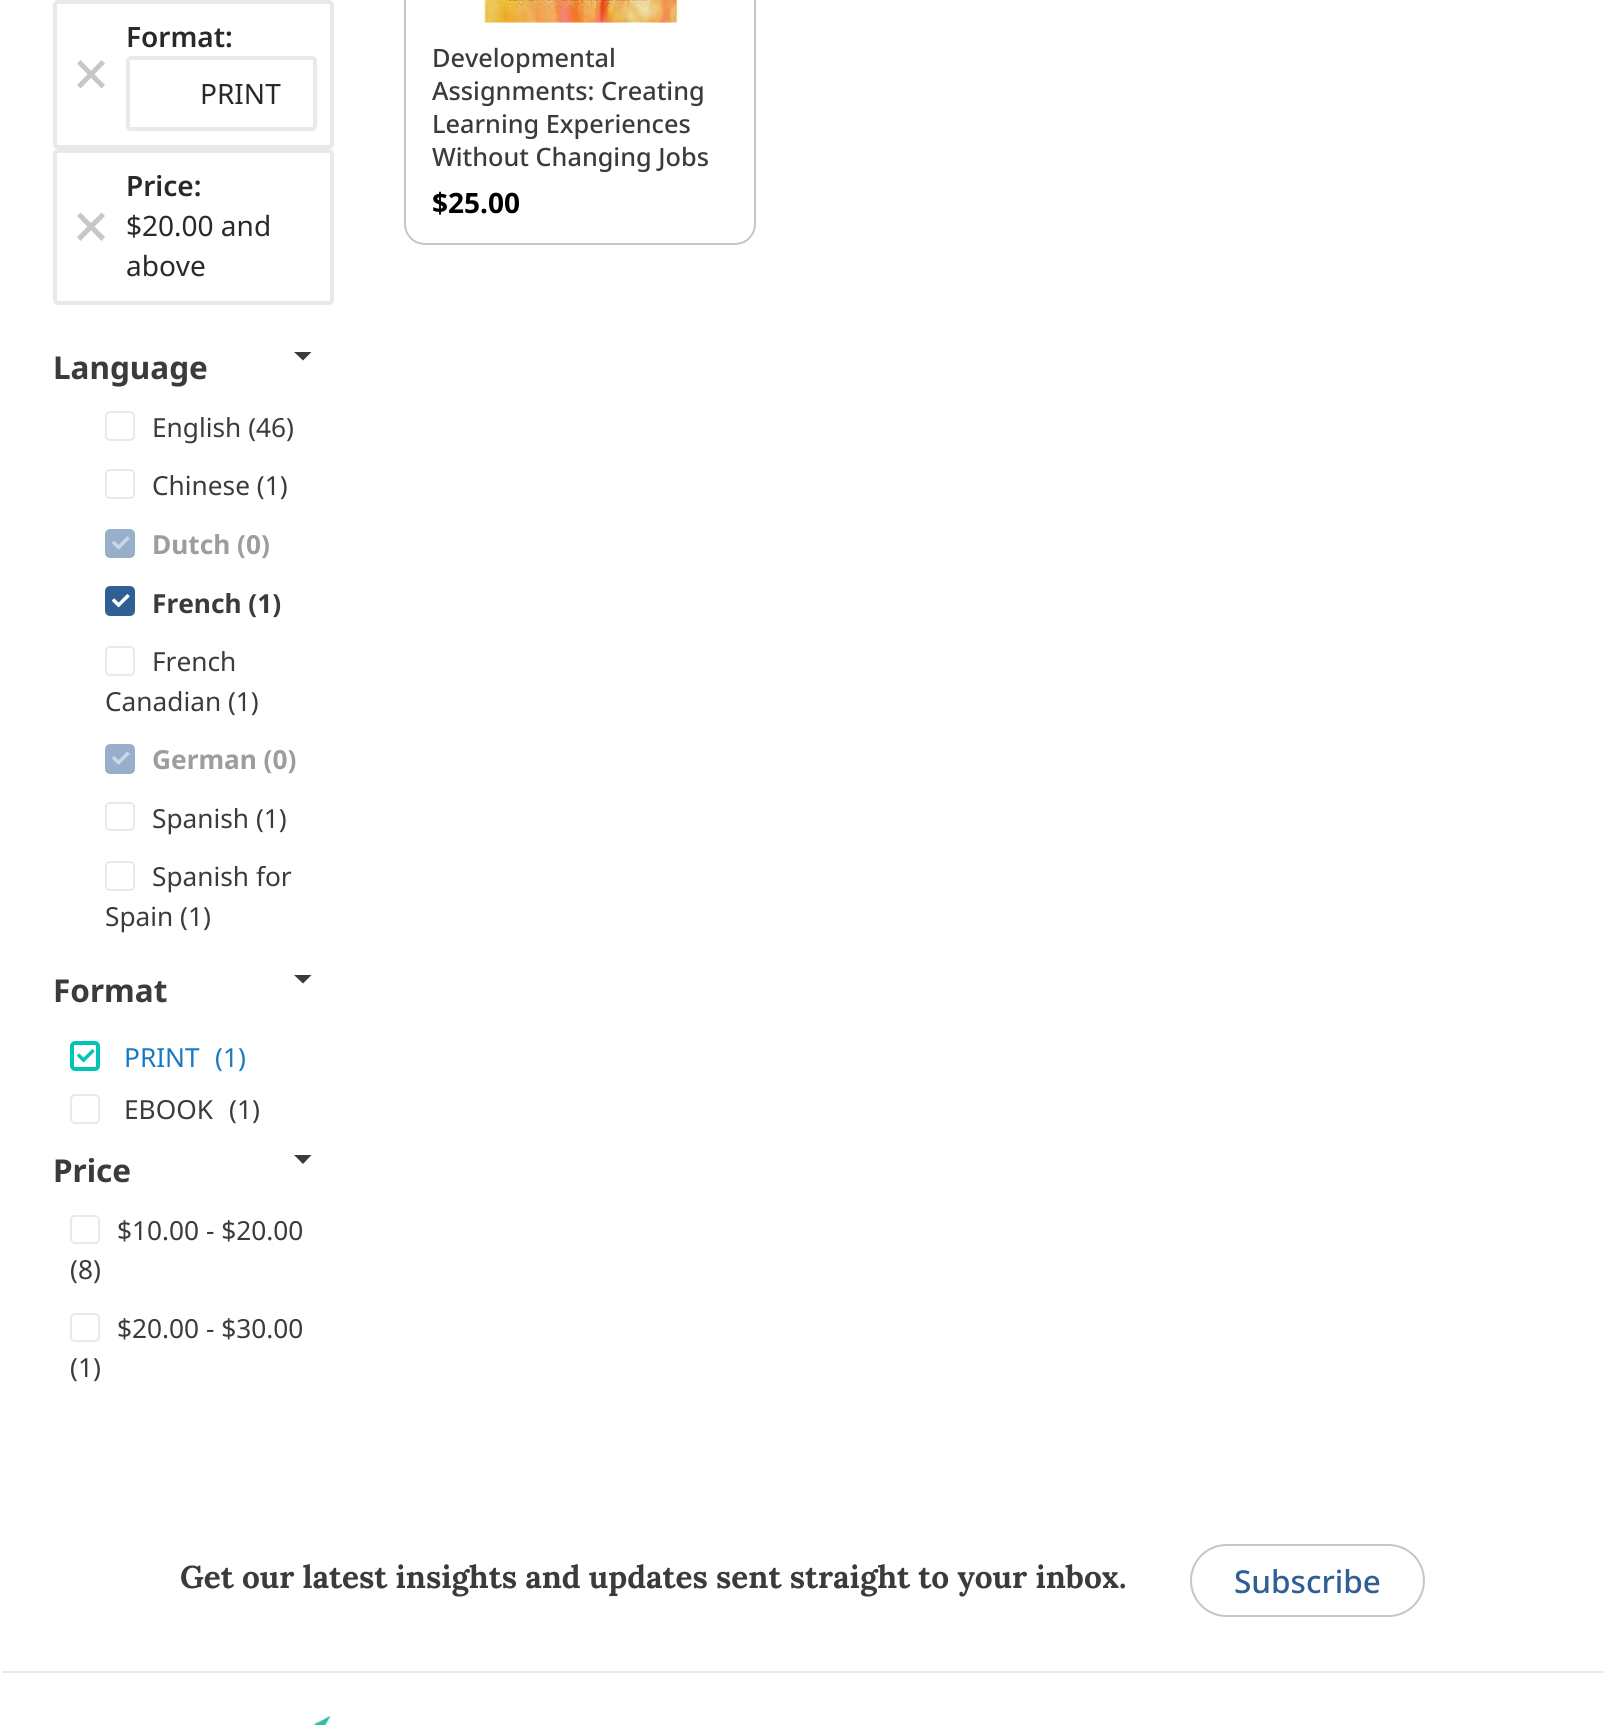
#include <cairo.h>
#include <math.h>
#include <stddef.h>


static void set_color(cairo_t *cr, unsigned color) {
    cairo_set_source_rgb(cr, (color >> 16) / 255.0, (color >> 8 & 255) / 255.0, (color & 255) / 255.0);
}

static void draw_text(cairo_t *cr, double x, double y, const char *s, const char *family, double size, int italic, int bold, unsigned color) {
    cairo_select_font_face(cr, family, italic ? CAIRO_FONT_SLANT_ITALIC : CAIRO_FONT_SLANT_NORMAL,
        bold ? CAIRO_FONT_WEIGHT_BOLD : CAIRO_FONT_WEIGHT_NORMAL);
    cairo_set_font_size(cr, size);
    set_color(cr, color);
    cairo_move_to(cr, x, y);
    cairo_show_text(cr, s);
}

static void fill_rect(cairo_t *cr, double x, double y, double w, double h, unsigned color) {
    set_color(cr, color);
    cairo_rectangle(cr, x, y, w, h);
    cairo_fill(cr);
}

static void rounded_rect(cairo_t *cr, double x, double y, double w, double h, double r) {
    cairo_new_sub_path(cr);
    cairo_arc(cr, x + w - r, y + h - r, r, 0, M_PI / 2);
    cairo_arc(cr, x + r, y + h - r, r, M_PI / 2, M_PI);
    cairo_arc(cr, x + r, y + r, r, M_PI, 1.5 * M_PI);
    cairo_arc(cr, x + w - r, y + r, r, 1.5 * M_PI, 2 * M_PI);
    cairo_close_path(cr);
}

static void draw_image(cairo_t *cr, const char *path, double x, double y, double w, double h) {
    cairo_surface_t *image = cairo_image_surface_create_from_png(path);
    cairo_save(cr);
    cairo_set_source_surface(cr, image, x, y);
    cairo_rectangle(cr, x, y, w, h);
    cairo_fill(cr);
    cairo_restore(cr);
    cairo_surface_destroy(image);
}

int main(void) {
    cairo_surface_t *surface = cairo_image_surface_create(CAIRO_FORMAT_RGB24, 1604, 1725);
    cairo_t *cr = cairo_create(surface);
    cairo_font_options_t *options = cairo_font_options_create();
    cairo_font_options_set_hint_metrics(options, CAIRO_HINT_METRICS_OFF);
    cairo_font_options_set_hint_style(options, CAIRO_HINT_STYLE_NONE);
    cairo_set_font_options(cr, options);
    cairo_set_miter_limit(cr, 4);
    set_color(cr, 0xFFFFFF);
    cairo_paint(cr);
    rounded_rect(cr, 55, 2, 277, 145, 3);
    set_color(cr, 0xEAE8E8);
    cairo_set_line_width(cr, 4);
    cairo_stroke(cr);
    draw_text(cr, 126, 47, "Format:", "Noto Sans SemiBold", 28, 0, 0, 0x292929);
    set_color(cr, 0xC7C7C7);
    cairo_new_path(cr);
    cairo_move_to(cr, 77, 85);
    cairo_line_to(cr, 101.5, 60);
    cairo_line_to(cr, 105, 63.5);
    cairo_line_to(cr, 80.5, 88.5);
    cairo_close_path(cr);
    cairo_fill(cr);
    cairo_new_path(cr);
    cairo_move_to(cr, 80.5, 60);
    cairo_line_to(cr, 105, 85);
    cairo_line_to(cr, 101.5, 88.5);
    cairo_line_to(cr, 77, 63.5);
    cairo_close_path(cr);
    cairo_fill(cr);
    rounded_rect(cr, 128, 58, 187, 71, 3);
    set_color(cr, 0xEAE8E8);
    cairo_stroke(cr);
    draw_text(cr, 200, 104, "PRINT", "Noto Sans", 28, 0, 0, 0x292929);
    rounded_rect(cr, 55, 151, 277, 152, 3);
    set_color(cr, 0xEAE8E8);
    cairo_stroke(cr);
    draw_text(cr, 126, 196, "Price:", "Noto Sans SemiBold", 28, 0, 0, 0x292929);
    set_color(cr, 0xC7C7C7);
    cairo_new_path(cr);
    cairo_move_to(cr, 77, 237);
    cairo_line_to(cr, 101.5, 212.5);
    cairo_line_to(cr, 105, 216);
    cairo_line_to(cr, 80.5, 241);
    cairo_close_path(cr);
    cairo_fill(cr);
    cairo_new_path(cr);
    cairo_move_to(cr, 80.5, 212.5);
    cairo_line_to(cr, 105, 237);
    cairo_line_to(cr, 101.5, 241);
    cairo_line_to(cr, 77, 216);
    cairo_close_path(cr);
    cairo_fill(cr);
    draw_text(cr, 126, 236, "$20.00 and", "Noto Sans", 28, 0, 0, 0x292929);
    draw_text(cr, 126, 276, "above", "Noto Sans", 28, 0, 0, 0x292929);
    draw_text(cr, 53, 379, "Language", "Noto Sans", 31.5, 0, 1, 0x3B3B3B);
    cairo_new_path(cr);
    cairo_move_to(cr, 294, 352);
    cairo_line_to(cr, 311.5, 352);
    cairo_line_to(cr, 303, 360.5);
    cairo_close_path(cr);
    cairo_fill(cr);
    rounded_rect(cr, 106, 412, 28, 28, 4);
    set_color(cr, 0xEAE8E8);
    cairo_set_line_width(cr, 2);
    cairo_stroke(cr);
    draw_text(cr, 152, 437, "English (46)", "Noto Sans", 26.25, 0, 0, 0x3B3B3B);
    rounded_rect(cr, 106, 470, 28, 28, 4);
    set_color(cr, 0xEAE8E8);
    cairo_stroke(cr);
    draw_text(cr, 152, 495, "Chinese (1)", "Noto Sans", 26.25, 0, 0, 0x3B3B3B);
    set_color(cr, 0x97AFCA);
    rounded_rect(cr, 107, 531, 26, 25, 3);
    cairo_fill_preserve(cr);
    cairo_set_line_width(cr, 4);
    cairo_stroke(cr);
    draw_image(cr, "assets/img1.png", 112, 536, 18, 14);
    draw_text(cr, 152, 554, "Dutch (0)", "Noto Sans", 26.25, 0, 1, 0x9D9D9D);
    set_color(cr, 0x2F5F95);
    rounded_rect(cr, 107, 588, 26, 26, 3);
    cairo_fill_preserve(cr);
    cairo_stroke(cr);
    draw_image(cr, "assets/img2.png", 112, 594, 18, 14);
    draw_text(cr, 152, 613, "French (1)", "Noto Sans", 26.25, 0, 1, 0x3B3B3B);
    rounded_rect(cr, 106, 647, 28, 28, 4);
    set_color(cr, 0xEAE8E8);
    cairo_set_line_width(cr, 2);
    cairo_stroke(cr);
    draw_text(cr, 152, 671, "French", "Noto Sans", 26.25, 0, 0, 0x3B3B3B);
    draw_text(cr, 105, 711, "Canadian (1)", "Noto Sans", 26.25, 0, 0, 0x3B3B3B);
    set_color(cr, 0x97AFCA);
    rounded_rect(cr, 107, 746, 26, 26, 3);
    cairo_fill_preserve(cr);
    cairo_set_line_width(cr, 4);
    cairo_stroke(cr);
    draw_image(cr, "assets/img3.png", 112, 751, 18, 14);
    draw_text(cr, 152, 769, "German (0)", "Noto Sans", 26.25, 0, 1, 0x9D9D9D);
    rounded_rect(cr, 106, 803, 28, 27, 4);
    set_color(cr, 0xEAE8E8);
    cairo_set_line_width(cr, 2);
    cairo_stroke(cr);
    draw_text(cr, 152, 828, "Spanish (1)", "Noto Sans", 26.25, 0, 0, 0x3B3B3B);
    rounded_rect(cr, 106, 862, 28, 28, 4);
    set_color(cr, 0xEAE8E8);
    cairo_stroke(cr);
    draw_text(cr, 152, 886, "Spanish for", "Noto Sans", 26.25, 0, 0, 0x3B3B3B);
    draw_text(cr, 105, 926, "Spain (1)", "Noto Sans", 26.25, 0, 0, 0x3B3B3B);
    draw_text(cr, 53, 1002, "Format", "Noto Sans", 31.5, 0, 1, 0x3B3B3B);
    cairo_new_path(cr);
    cairo_move_to(cr, 294, 975);
    cairo_line_to(cr, 311.5, 975);
    cairo_line_to(cr, 303, 983.5);
    cairo_close_path(cr);
    cairo_fill(cr);
    rounded_rect(cr, 72, 1043, 26, 26, 3);
    set_color(cr, 0x00C4B4);
    cairo_set_line_width(cr, 4);
    cairo_stroke(cr);
    draw_image(cr, "assets/img4.png", 77, 1049, 18, 14);
    draw_text(cr, 124, 1067, "PRINT", "Noto Sans", 26.25, 0, 0, 0x1979C3);
    draw_text(cr, 215, 1067, "(1)", "Noto Sans", 26.25, 0, 0, 0x1979C3);
    rounded_rect(cr, 71, 1095, 28, 28, 4);
    set_color(cr, 0xEAE8E8);
    cairo_set_line_width(cr, 2);
    cairo_stroke(cr);
    draw_text(cr, 124, 1119, "EBOOK", "Noto Sans", 26.25, 0, 0, 0x3B3B3B);
    draw_text(cr, 229, 1119, "(1)", "Noto Sans", 26.25, 0, 0, 0x3B3B3B);
    draw_text(cr, 53, 1182, "Price", "Noto Sans", 31.5, 0, 1, 0x3B3B3B);
    cairo_new_path(cr);
    cairo_move_to(cr, 294, 1155);
    cairo_line_to(cr, 311.5, 1155);
    cairo_line_to(cr, 303, 1164);
    cairo_close_path(cr);
    cairo_fill(cr);
    rounded_rect(cr, 71, 1216, 28, 27, 4);
    set_color(cr, 0xEAE8E8);
    cairo_stroke(cr);
    draw_text(cr, 117, 1240, "$10.00 - $20.00", "Noto Sans", 26.25, 0, 0, 0x3B3B3B);
    draw_text(cr, 70, 1279, "(8)", "Noto Sans", 26.25, 0, 0, 0x3B3B3B);
    rounded_rect(cr, 71, 1314, 28, 27, 4);
    set_color(cr, 0xEAE8E8);
    cairo_stroke(cr);
    draw_text(cr, 117, 1338, "$20.00 - $30.00", "Noto Sans", 26.25, 0, 0, 0x3B3B3B);
    draw_text(cr, 70, 1377, "(1)", "Noto Sans", 26.25, 0, 0, 0x3B3B3B);
    rounded_rect(cr, 405, -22, 350, 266, 20);
    set_color(cr, 0xC3C6CF);
    cairo_stroke(cr);
    draw_image(cr, "assets/img5.png", 481, 0, 199, 23);
    draw_text(cr, 432, 67, "Developmental", "Noto Sans Medium", 25.25, 0, 0, 0x3B3B3B);
    draw_text(cr, 432, 100, "Assignments: Creating", "Noto Sans Medium", 25.25, 0, 0, 0x3B3B3B);
    draw_text(cr, 432, 133, "Learning Experiences", "Noto Sans Medium", 25.25, 0, 0, 0x3B3B3B);
    draw_text(cr, 432, 166, "Without Changing Jobs", "Noto Sans Medium", 25.25, 0, 0, 0x3B3B3B);
    draw_text(cr, 432, 213, "$25.00", "Noto Sans", 28, 0, 1, 0x000000);
    draw_text(cr, 180, 1588, "Get our latest insights and updates sent straight to your inbox.", "Lora", 31.5, 0, 1, 0x3B3B3B);
    rounded_rect(cr, 1191, 1545, 233, 71, 35.5);
    set_color(cr, 0xC3C6CF);
    cairo_stroke(cr);
    draw_text(cr, 1234, 1593, "Subscribe", "Noto Sans Medium", 31.5, 0, 0, 0x2F5F95);
    fill_rect(cr, 2, 1671, 1602, 2, 0xEAE8E8);
    draw_image(cr, "assets/img6.png", 313, 1715, 18, 10);
    cairo_surface_write_to_png(surface, "output.png");
    cairo_font_options_destroy(options);
    cairo_destroy(cr);
    cairo_surface_destroy(surface);
    return 0;
}
